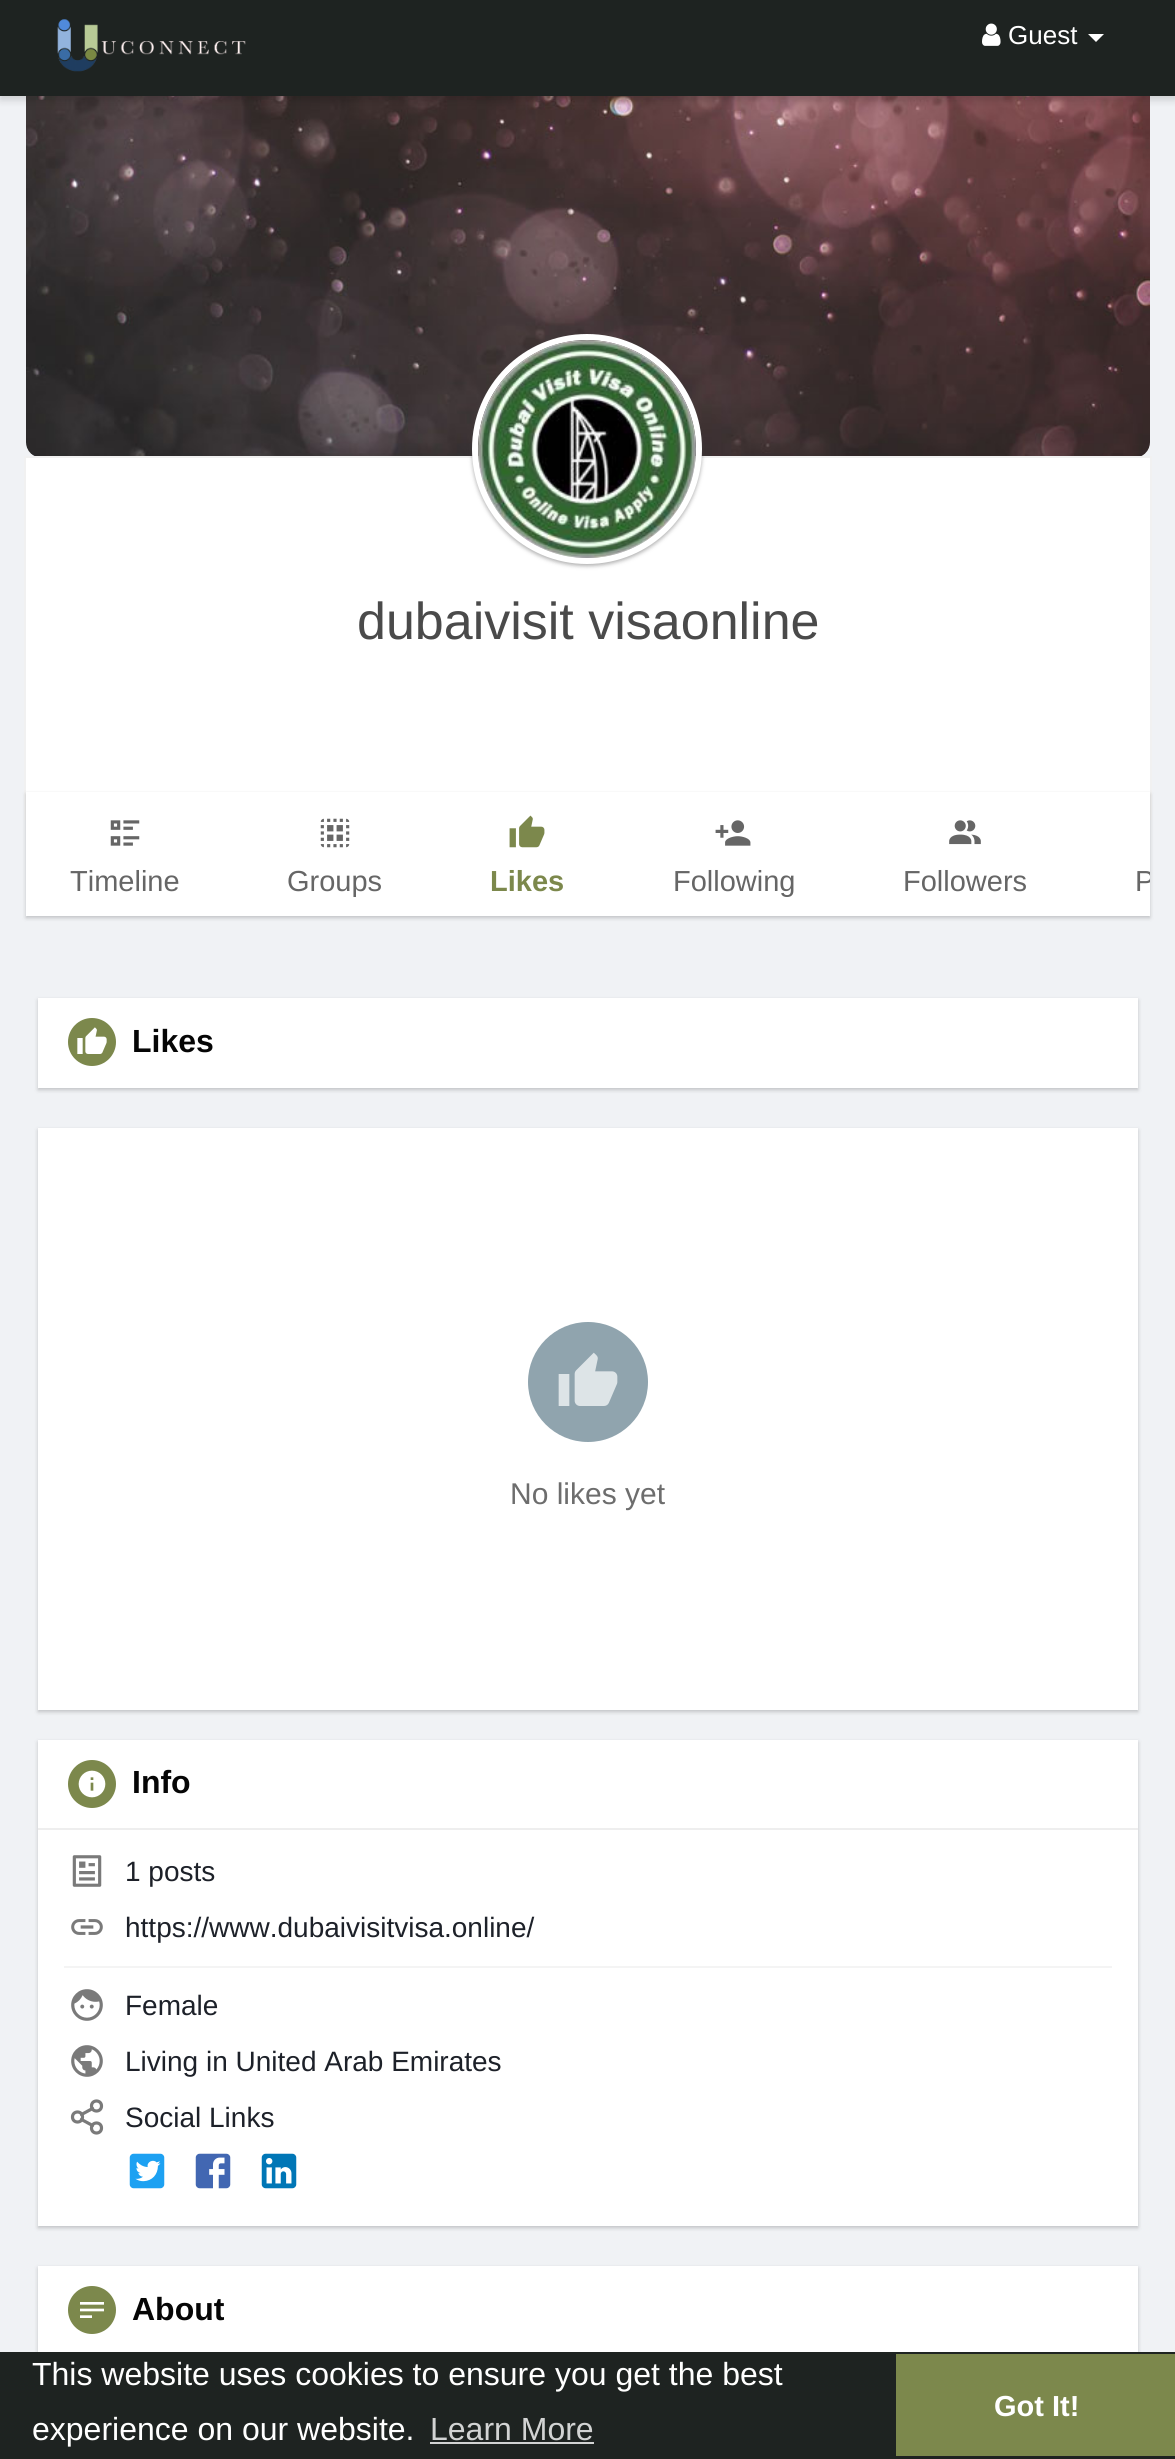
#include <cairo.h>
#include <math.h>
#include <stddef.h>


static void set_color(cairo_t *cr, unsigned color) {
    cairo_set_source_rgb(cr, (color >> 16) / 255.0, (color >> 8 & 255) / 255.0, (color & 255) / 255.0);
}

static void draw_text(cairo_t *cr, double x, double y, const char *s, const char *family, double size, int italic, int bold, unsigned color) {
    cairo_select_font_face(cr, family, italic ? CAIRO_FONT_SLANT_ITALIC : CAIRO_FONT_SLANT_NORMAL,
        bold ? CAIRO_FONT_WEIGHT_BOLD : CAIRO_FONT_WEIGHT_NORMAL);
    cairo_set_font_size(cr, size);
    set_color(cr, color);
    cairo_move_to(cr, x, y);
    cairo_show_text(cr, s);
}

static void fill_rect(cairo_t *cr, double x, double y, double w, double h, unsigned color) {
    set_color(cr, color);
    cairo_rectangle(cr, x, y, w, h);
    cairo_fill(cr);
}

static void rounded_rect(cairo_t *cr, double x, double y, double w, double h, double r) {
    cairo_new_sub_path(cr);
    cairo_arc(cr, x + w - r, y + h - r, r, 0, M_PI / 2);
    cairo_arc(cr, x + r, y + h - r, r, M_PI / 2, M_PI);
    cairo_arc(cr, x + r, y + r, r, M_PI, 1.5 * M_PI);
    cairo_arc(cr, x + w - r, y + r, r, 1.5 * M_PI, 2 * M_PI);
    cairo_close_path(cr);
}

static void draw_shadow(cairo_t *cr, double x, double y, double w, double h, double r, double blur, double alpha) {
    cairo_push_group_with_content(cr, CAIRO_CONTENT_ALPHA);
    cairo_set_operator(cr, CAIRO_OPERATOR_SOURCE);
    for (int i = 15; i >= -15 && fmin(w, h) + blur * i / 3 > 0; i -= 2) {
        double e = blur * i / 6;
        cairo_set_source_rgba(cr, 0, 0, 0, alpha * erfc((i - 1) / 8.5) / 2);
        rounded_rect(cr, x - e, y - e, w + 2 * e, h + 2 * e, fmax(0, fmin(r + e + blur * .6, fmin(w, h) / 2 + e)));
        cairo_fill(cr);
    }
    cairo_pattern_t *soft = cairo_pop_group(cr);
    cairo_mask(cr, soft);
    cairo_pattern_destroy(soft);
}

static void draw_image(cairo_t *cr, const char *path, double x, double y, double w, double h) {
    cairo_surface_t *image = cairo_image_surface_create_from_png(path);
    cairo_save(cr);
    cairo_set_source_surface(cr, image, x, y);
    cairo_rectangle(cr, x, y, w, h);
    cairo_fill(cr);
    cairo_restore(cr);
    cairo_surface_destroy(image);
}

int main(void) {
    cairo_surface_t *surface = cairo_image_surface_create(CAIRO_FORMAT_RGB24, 1175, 2459);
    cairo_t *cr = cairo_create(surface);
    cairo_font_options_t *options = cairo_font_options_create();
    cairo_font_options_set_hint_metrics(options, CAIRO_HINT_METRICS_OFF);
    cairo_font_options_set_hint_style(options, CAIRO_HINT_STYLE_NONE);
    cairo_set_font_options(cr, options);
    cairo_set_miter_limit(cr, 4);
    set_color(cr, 0xF0F2F5);
    cairo_paint(cr);
    set_color(cr, 0xFFFFFF);
    cairo_new_path(cr);
    cairo_move_to(cr, 26, 90);
    cairo_line_to(cr, 1150, 90);
    cairo_line_to(cr, 1150, 442);
    cairo_curve_to(cr, 1150, 451, 1143, 458, 1134, 458);
    cairo_line_to(cr, 42, 458);
    cairo_curve_to(cr, 33, 458, 26, 451, 26, 442);
    cairo_close_path(cr);
    cairo_fill(cr);
    draw_image(cr, "assets/img3.png", 26, 96, 1124, 360);
    set_color(cr, 0x000000);
    draw_shadow(cr, 0, 4, 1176, 96, 0, 4, 0.15);
    fill_rect(cr, 0, 0, 1175, 96, 0x1E2321);
    draw_image(cr, "assets/img1.png", 57, 19, 189, 53);
    draw_image(cr, "assets/img2.png", 982, 23, 19, 23);
    draw_text(cr, 1008, 44, "Guest", "Liberation Sans", 26, 0, 0, 0xFFFFFF);
    cairo_new_path(cr);
    cairo_move_to(cr, 1088, 34);
    cairo_line_to(cr, 1104, 34);
    cairo_line_to(cr, 1096, 42);
    cairo_close_path(cr);
    cairo_fill(cr);
    cairo_rectangle(cr, 25, 457, 1126, 362);
    set_color(cr, 0xF1F1F1);
    cairo_stroke(cr);
    fill_rect(cr, 26, 458, 1124, 334, 0xFFFFFF);
    set_color(cr, 0x444444);
    draw_shadow(cr, 472, 336, 230, 230, 115, 2, 0.42);
    cairo_arc(cr, 587, 449, 112, 0, 2 * M_PI);
    set_color(cr, 0xFFFFFF);
    cairo_set_line_width(cr, 6);
    cairo_stroke(cr);
    draw_image(cr, "assets/img4.png", 478, 340, 218, 218);
    draw_text(cr, 357, 639, "dubaivisit visaonline", "Liberation Sans", 52, 0, 0, 0x4A4A4A);
    set_color(cr, 0x000000);
    draw_shadow(cr, 26, 794, 1124, 124, 0, 2, 0.2);
    fill_rect(cr, 26, 792, 1124, 124, 0xFFFFFF);
    draw_image(cr, "assets/img5.png", 110, 820, 30, 26);
    draw_text(cr, 70, 891, "Timeline", "Liberation Sans", 29, 0, 0, 0x666666);
    draw_image(cr, "assets/img6.png", 320, 818, 30, 30);
    draw_text(cr, 287, 891, "Groups", "Liberation Sans", 29, 0, 0, 0x666666);
    draw_image(cr, "assets/img7.png", 509, 815, 36, 33);
    draw_text(cr, 490, 891, "Likes", "Liberation Sans", 29, 0, 1, 0x7C884C);
    draw_image(cr, "assets/img8.png", 715, 820, 36, 26);
    draw_text(cr, 673, 891, "Following", "Liberation Sans", 29, 0, 0, 0x666666);
    draw_image(cr, "assets/img9.png", 949, 820, 32, 25);
    draw_text(cr, 903, 891, "Followers", "Liberation Sans", 29, 0, 0, 0x666666);
    cairo_save(cr);
    cairo_rectangle(cr, 26, 792, 1124, 126);
    cairo_clip(cr);
    draw_text(cr, 1135, 891, "P", "Liberation Sans", 29, 0, 0, 0x666666);
    cairo_restore(cr);
    set_color(cr, 0x000000);
    draw_shadow(cr, 38, 1000, 1100, 90, 0, 2, 0.2);
    fill_rect(cr, 38, 998, 1100, 90, 0xFFFFFF);
    set_color(cr, 0x7C884C);
    cairo_arc(cr, 92, 1042, 24, 0, 2 * M_PI);
    cairo_fill(cr);
    draw_image(cr, "assets/img10.png", 77, 1027, 30, 27);
    draw_text(cr, 132, 1052, "Likes", "Liberation Sans", 32, 0, 1, 0x050505);
    set_color(cr, 0x000000);
    draw_shadow(cr, 38, 1130, 1100, 582, 0, 2, 0.2);
    fill_rect(cr, 38, 1128, 1100, 582, 0xFFFFFF);
    set_color(cr, 0x90A4AE);
    cairo_arc(cr, 588, 1382, 60, 0, 2 * M_PI);
    cairo_fill(cr);
    draw_image(cr, "assets/img11.png", 558, 1352, 60, 54);
    draw_text(cr, 510, 1504, "No likes yet", "Liberation Sans", 30, 0, 0, 0x6D6D6D);
    set_color(cr, 0x000000);
    draw_shadow(cr, 38, 1742, 1100, 486, 0, 2, 0.2);
    fill_rect(cr, 38, 1740, 1100, 486, 0xFFFFFF);
    fill_rect(cr, 38, 1828, 1100, 2, 0xEEEEEE);
    set_color(cr, 0x7C884C);
    cairo_arc(cr, 92, 1784, 24, 0, 2 * M_PI);
    cairo_fill(cr);
    draw_image(cr, "assets/img12.png", 78, 1770, 28, 28);
    draw_text(cr, 132, 1793, "Info", "Liberation Sans", 32, 0, 1, 0x050505);
    draw_image(cr, "assets/img13.png", 72, 1855, 30, 32);
    draw_text(cr, 125, 1881, "1 posts", "Liberation Sans", 28, 0, 0, 0x1D2129);
    draw_image(cr, "assets/img14.png", 71, 1919, 32, 16);
    draw_text(cr, 125, 1937, "https://www.dubaivisitvisa.online/", "Liberation Sans", 28, 0, 0, 0x1D2129);
    fill_rect(cr, 64, 1966, 1048, 2, 0xF4F4F4);
    draw_image(cr, "assets/img15.png", 71, 1989, 32, 32);
    draw_text(cr, 125, 2015, "Female", "Liberation Sans", 28, 0, 0, 0x1D2129);
    draw_image(cr, "assets/img16.png", 71, 2045, 32, 32);
    draw_text(cr, 125, 2071, "Living in United Arab Emirates", "Liberation Sans", 28, 0, 0, 0x1D2129);
    cairo_new_path(cr);
    cairo_arc(cr, 77.5, 2117, 5, 0, 2 * M_PI);
    set_color(cr, 0x7A7A7A);
    cairo_set_line_width(cr, 3.2);
    cairo_stroke(cr);
    cairo_arc(cr, 96.5, 2106, 5, 0, 2 * M_PI);
    cairo_stroke(cr);
    cairo_arc(cr, 96.5, 2128, 5, 0, 2 * M_PI);
    cairo_stroke(cr);
    cairo_new_path(cr);
    cairo_move_to(cr, 81.5, 2119.5);
    cairo_line_to(cr, 92.5, 2125.5);
    cairo_move_to(cr, 92.5, 2108.5);
    cairo_line_to(cr, 81.5, 2114.5);
    cairo_set_line_cap(cr, CAIRO_LINE_CAP_ROUND);
    cairo_set_line_join(cr, CAIRO_LINE_JOIN_ROUND);
    cairo_stroke(cr);
    draw_text(cr, 125, 2127, "Social Links", "Liberation Sans", 28, 0, 0, 0x1D2129);
    draw_image(cr, "assets/img17.png", 129, 2153, 36, 36);
    draw_image(cr, "assets/img18.png", 195, 2153, 36, 36);
    draw_image(cr, "assets/img19.png", 261, 2153, 36, 36);
    set_color(cr, 0x000000);
    draw_shadow(cr, 38, 2268, 1100, 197, 0, 2, 0.2);
    fill_rect(cr, 38, 2266, 1100, 86, 0xFFFFFF);
    set_color(cr, 0x7C884C);
    cairo_arc(cr, 92, 2310, 24, 0, 2 * M_PI);
    cairo_fill(cr);
    draw_image(cr, "assets/img20.png", 80, 2302, 24, 16);
    draw_text(cr, 132, 2320, "About", "Liberation Sans", 32, 0, 1, 0x050505);
    fill_rect(cr, 0, 2352, 1175, 107, 0x1E2321);
    draw_text(cr, 32, 2385, "This website uses cookies to ensure you get the best", "Liberation Sans", 32, 0, 0, 0xFFFFFF);
    draw_text(cr, 32, 2440, "experience on our website.", "Liberation Sans", 32, 0, 0, 0xFFFFFF);
    draw_text(cr, 430, 2440, "Learn More", "Liberation Sans", 32, 0, 0, 0xD2D3D3);
    fill_rect(cr, 430, 2442, 164, 2, 0xD2D3D3);
    fill_rect(cr, 896, 2354, 279, 102, 0x7C884C);
    draw_text(cr, 994, 2416, "Got It!", "Liberation Sans", 29, 0, 1, 0xFFFFFF);
    cairo_surface_write_to_png(surface, "output.png");
    cairo_font_options_destroy(options);
    cairo_destroy(cr);
    cairo_surface_destroy(surface);
    return 0;
}
